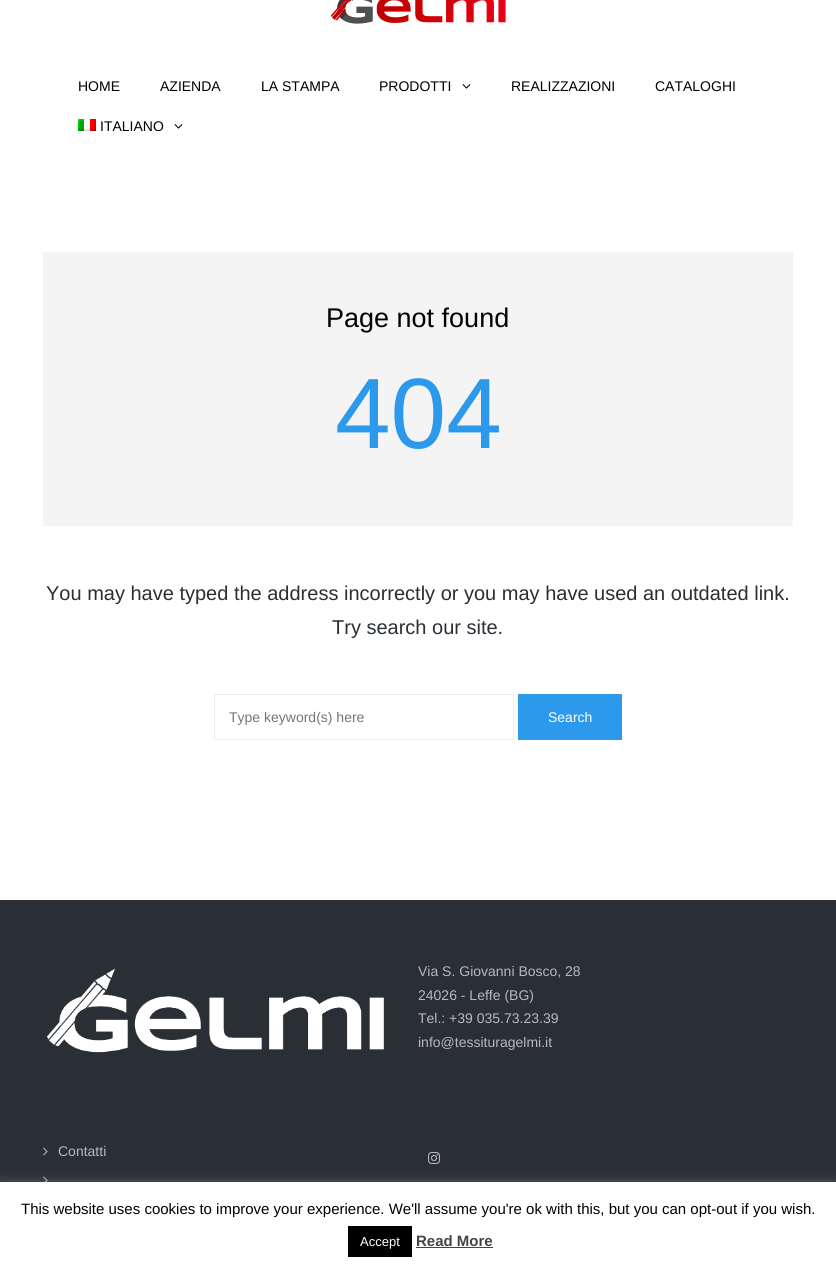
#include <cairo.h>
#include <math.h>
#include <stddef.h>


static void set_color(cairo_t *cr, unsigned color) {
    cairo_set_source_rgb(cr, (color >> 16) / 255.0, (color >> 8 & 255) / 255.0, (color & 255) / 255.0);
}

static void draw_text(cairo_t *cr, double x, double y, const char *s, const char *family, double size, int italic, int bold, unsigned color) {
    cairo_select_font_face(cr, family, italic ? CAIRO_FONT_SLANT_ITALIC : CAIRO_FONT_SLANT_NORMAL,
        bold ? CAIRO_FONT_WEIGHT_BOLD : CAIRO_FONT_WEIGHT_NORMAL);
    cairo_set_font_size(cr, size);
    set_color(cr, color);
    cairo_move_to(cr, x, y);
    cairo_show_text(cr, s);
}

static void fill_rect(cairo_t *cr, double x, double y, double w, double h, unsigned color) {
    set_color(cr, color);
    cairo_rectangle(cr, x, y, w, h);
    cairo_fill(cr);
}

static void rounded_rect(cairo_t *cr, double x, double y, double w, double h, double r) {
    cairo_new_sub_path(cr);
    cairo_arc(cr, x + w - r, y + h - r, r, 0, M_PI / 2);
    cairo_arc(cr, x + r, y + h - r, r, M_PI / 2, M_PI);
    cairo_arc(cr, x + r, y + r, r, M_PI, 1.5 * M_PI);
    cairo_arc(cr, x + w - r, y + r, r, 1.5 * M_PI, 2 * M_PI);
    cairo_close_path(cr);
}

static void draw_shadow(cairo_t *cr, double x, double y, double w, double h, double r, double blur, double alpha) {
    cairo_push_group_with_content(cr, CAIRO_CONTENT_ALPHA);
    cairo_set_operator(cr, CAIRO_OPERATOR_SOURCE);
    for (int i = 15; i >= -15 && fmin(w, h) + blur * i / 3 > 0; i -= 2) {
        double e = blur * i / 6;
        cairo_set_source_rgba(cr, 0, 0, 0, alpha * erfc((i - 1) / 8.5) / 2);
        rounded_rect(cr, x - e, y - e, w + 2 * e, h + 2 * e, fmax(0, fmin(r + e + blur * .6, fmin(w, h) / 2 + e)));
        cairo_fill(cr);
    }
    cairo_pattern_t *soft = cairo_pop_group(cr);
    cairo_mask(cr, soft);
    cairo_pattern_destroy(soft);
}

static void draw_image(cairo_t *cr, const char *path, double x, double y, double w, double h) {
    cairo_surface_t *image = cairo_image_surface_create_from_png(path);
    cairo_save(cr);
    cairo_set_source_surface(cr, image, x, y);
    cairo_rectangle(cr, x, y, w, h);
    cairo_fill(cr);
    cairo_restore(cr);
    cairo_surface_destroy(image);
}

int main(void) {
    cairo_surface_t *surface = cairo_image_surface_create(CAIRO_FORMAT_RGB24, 836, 1269);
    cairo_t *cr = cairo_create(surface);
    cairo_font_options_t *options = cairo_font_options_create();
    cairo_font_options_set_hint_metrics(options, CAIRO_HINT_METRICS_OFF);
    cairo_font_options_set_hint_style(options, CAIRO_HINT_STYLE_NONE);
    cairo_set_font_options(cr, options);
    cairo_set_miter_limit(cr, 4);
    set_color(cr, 0xFFFFFF);
    cairo_paint(cr);
    draw_image(cr, "assets/img1.png", 331, 0, 175, 24);
    draw_text(cr, 78, 91, "HOME", "Liberation Sans", 14, 0, 0, 0x000000);
    draw_text(cr, 160, 91, "AZIENDA", "Liberation Sans", 14, 0, 0, 0x000000);
    draw_text(cr, 261, 91, "LA STAMPA", "Liberation Sans", 14, 0, 0, 0x000000);
    draw_text(cr, 379, 91, "PRODOTTI", "Liberation Sans", 14, 0, 0, 0x000000);
    draw_image(cr, "assets/img2.png", 462, 84, 9, 5);
    draw_text(cr, 511, 91, "REALIZZAZIONI", "Liberation Sans", 14, 0, 0, 0x000000);
    draw_text(cr, 655, 91, "CATALOGHI", "Liberation Sans", 14, 0, 0, 0x000000);
    draw_image(cr, "assets/img3.png", 78, 119, 18, 12);
    draw_text(cr, 100, 131, "ITALIANO", "Liberation Sans", 14, 0, 0, 0x000000);
    draw_image(cr, "assets/img2.png", 174, 124, 9, 5);
    fill_rect(cr, 43, 252, 750, 274, 0xF4F4F4);
    draw_text(cr, 326, 327, "Page not found", "Liberation Sans", 27, 0, 0, 0x000000);
    draw_text(cr, 335, 448, "404", "Liberation Sans", 100, 0, 0, 0x2C99ED);
    draw_text(cr, 46, 600, "You may have typed the address incorrectly or you may have used an outdated link.", "Liberation Sans", 20, 0, 0, 0x2A2F35);
    draw_text(cr, 332, 634, "Try search our site.", "Liberation Sans", 20, 0, 0, 0x2A2F35);
    cairo_rectangle(cr, 214.5, 694.5, 299, 45);
    set_color(cr, 0xEEEEEE);
    cairo_set_line_width(cr, 1);
    cairo_stroke(cr);
    draw_text(cr, 229, 722, "Type keyword(s) here", "Liberation Sans", 14, 0, 0, 0x757575);
    fill_rect(cr, 518, 694, 104, 46, 0x2C99ED);
    draw_text(cr, 548, 722, "Search", "Liberation Sans", 14, 0, 0, 0xFFFFFF);
    fill_rect(cr, 0, 900, 836, 282, 0x2A2F35);
    draw_image(cr, "assets/img4.png", 47, 968, 337, 85);
    draw_text(cr, 418, 976, "Via S. Giovanni Bosco, 28", "Liberation Sans", 14, 0, 0, 0xB8B8B8);
    draw_text(cr, 418, 1000, "24026 - Leffe (BG)", "Liberation Sans", 14, 0, 0, 0xB8B8B8);
    draw_text(cr, 418, 1023, "Tel.: +39 035.73.23.39", "Liberation Sans", 14, 0, 0, 0xB8B8B8);
    draw_text(cr, 418, 1047, "info@tessituragelmi.it", "Liberation Sans", 14, 0, 0, 0xB8B8B8);
    draw_image(cr, "assets/img5.png", 43, 1147, 5, 9);
    draw_text(cr, 58, 1156, "Contatti", "Liberation Sans", 14, 0, 0, 0xB8B8B8);
    draw_image(cr, "assets/img6.png", 43, 1176, 5, 6);
    draw_image(cr, "assets/img7.png", 428, 1152, 12, 12);
    set_color(cr, 0xACABAB);
    draw_shadow(cr, 0, 1181, 836, 87, 0, 5, 0.3);
    fill_rect(cr, 0, 1182, 836, 87, 0xFFFFFF);
    draw_text(cr, 21, 1214, "This website uses cookies to improve your experience. We'll assume you're ok with this, but you can opt-out if you wish.", "Liberation Sans", 15, 0, 0, 0x000000);
    fill_rect(cr, 348, 1226, 64, 31, 0x000000);
    draw_text(cr, 360, 1246, "Accept", "Liberation Sans", 13, 0, 0, 0xFFFFFF);
    draw_text(cr, 416, 1246, "Read More", "Liberation Sans", 15, 0, 1, 0x444444);
    fill_rect(cr, 416, 1247, 77, 1, 0x444444);
    cairo_surface_write_to_png(surface, "output.png");
    cairo_font_options_destroy(options);
    cairo_destroy(cr);
    cairo_surface_destroy(surface);
    return 0;
}
